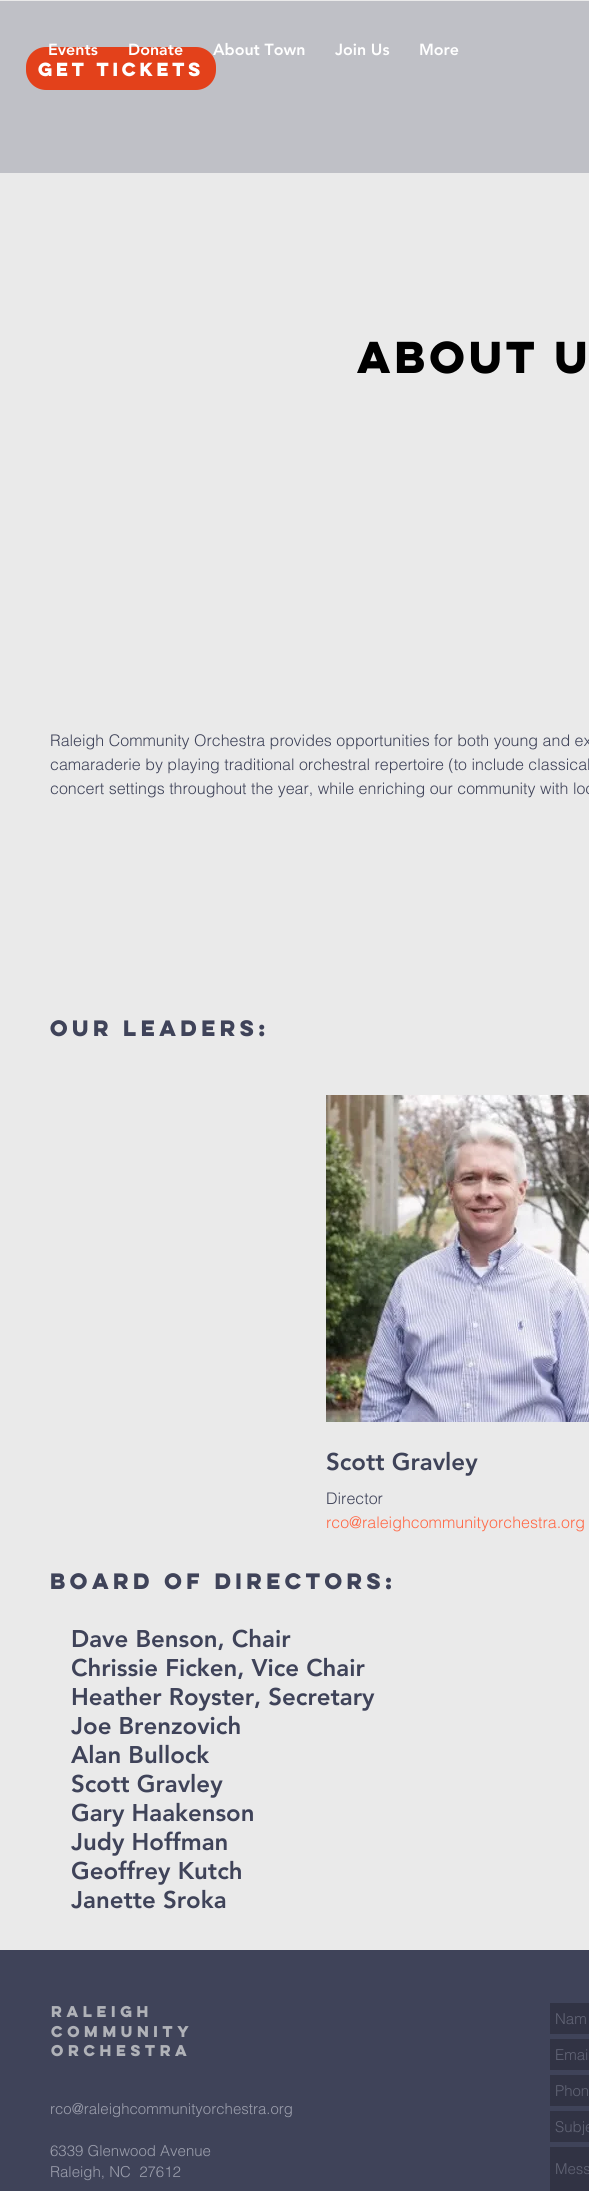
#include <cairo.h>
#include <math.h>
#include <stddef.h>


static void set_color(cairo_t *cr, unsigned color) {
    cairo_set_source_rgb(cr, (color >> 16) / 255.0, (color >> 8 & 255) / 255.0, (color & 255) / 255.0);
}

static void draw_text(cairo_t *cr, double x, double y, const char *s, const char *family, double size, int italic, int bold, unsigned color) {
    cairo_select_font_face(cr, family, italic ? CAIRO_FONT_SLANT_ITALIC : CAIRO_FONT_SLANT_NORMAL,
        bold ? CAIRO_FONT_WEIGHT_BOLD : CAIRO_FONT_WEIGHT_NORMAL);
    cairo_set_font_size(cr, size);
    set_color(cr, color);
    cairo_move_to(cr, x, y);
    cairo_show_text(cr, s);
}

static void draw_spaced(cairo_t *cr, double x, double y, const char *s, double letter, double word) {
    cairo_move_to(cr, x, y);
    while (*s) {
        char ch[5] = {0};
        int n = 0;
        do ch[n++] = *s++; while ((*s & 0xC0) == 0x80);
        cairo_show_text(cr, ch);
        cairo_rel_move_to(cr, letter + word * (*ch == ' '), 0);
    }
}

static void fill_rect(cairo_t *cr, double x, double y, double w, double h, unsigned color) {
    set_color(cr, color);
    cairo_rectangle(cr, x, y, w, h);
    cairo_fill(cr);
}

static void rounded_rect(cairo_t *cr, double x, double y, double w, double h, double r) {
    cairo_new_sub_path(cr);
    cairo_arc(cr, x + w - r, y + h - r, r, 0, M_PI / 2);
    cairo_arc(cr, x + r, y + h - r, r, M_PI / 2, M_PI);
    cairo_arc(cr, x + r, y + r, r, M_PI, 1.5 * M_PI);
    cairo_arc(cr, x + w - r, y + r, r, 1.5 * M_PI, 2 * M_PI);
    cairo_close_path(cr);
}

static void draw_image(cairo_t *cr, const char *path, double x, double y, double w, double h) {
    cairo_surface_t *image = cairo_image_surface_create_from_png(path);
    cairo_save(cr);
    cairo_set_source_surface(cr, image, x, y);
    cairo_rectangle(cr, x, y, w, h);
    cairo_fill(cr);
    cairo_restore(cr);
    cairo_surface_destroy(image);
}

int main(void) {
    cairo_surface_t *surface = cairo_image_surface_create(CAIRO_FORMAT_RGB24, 589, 2191);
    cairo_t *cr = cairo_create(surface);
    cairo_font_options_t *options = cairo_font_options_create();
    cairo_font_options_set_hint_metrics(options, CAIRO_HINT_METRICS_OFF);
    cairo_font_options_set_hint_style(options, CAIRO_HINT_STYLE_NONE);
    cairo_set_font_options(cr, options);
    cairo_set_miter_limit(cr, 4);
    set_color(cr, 0xEAEAEA);
    cairo_paint(cr);
    fill_rect(cr, 0, 1, 589, 172, 0xBFC0C6);
    set_color(cr, 0xE3411B);
    rounded_rect(cr, 26, 47, 190, 43, 20);
    cairo_fill(cr);
    draw_text(cr, 48, 55, "Events", "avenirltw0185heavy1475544 Black", 16, 0, 0, 0xFFFFFF);
    draw_text(cr, 128, 55, "Donate", "avenirltw0185heavy1475544 Black", 16, 0, 0, 0xFFFFFF);
    draw_text(cr, 213, 55, "About Town", "avenirltw0185heavy1475544 Black", 16, 0, 0, 0xFFFFFF);
    draw_text(cr, 335, 55, "Join Us", "avenirltw0185heavy1475544 Black", 16, 0, 0, 0xFFFFFF);
    draw_text(cr, 419, 55, "More", "avenirltw0185heavy1475544 Black", 16, 0, 0, 0xFFFFFF);
    draw_text(cr, 38, 76, "Get Tickets", "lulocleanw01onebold", 17, 0, 1, 0xFFFFFF);
    cairo_set_font_size(cr, 40);
    set_color(cr, 0x000000);
    draw_spaced(cr, 357, 373, "About u", -4.75, 0);
    draw_text(cr, 50, 746, "Raleigh Community Orchestra provides opportunities for both young and ex", "helvetica Light", 16, 0, 0, 0x3F4359);
    draw_text(cr, 50, 770, "camaraderie by playing traditional orchestral repertoire (to include classical", "helvetica Light", 16, 0, 0, 0x3F4359);
    draw_text(cr, 50, 794, "concert settings throughout the year, while enriching our community with loc", "helvetica Light", 16, 0, 0, 0x3F4359);
    draw_text(cr, 50, 1036, "our LEADERS:", "lulocleanw01onebold", 20, 0, 1, 0x3F4359);
    draw_image(cr, "assets/img1.png", 326, 1095, 263, 327);
    draw_text(cr, 326, 1470, "Scott Gravley", "avenirltw0185heavy1475544 Black", 24, 0, 0, 0x3F4359);
    draw_text(cr, 326, 1504, "Director", "helvetica Light", 16, 0, 0, 0x3F4359);
    draw_text(cr, 326, 1528, "rco@raleighcommunityorchestra.org", "helvetica Light", 16, 0, 0, 0xFF6A48);
    draw_text(cr, 50, 1589, "BOARD OF DIRECTORS:", "lulocleanw01onebold", 20, 0, 1, 0x3F4359);
    draw_text(cr, 71, 1647, "Dave Benson, Chair", "avenirltw0185heavy1475544 Black", 24, 0, 0, 0x3F4359);
    draw_text(cr, 71, 1676, "Chrissie Ficken, Vice Chair", "avenirltw0185heavy1475544 Black", 24, 0, 0, 0x3F4359);
    draw_text(cr, 71, 1705, "Heather Royster, Secretary", "avenirltw0185heavy1475544 Black", 24, 0, 0, 0x3F4359);
    draw_text(cr, 71, 1734, "Joe Brenzovich", "avenirltw0185heavy1475544 Black", 24, 0, 0, 0x3F4359);
    draw_text(cr, 71, 1763, "Alan Bullock", "avenirltw0185heavy1475544 Black", 24, 0, 0, 0x3F4359);
    draw_text(cr, 71, 1792, "Scott Gravley", "avenirltw0185heavy1475544 Black", 24, 0, 0, 0x3F4359);
    draw_text(cr, 71, 1821, "Gary Haakenson", "avenirltw0185heavy1475544 Black", 24, 0, 0, 0x3F4359);
    draw_text(cr, 71, 1850, "Judy Hoffman", "avenirltw0185heavy1475544 Black", 24, 0, 0, 0x3F4359);
    draw_text(cr, 71, 1879, "Geoffrey Kutch", "avenirltw0185heavy1475544 Black", 24, 0, 0, 0x3F4359);
    draw_text(cr, 71, 1908, "Janette Sroka", "avenirltw0185heavy1475544 Black", 24, 0, 0, 0x3F4359);
    fill_rect(cr, 0, 1950, 589, 241, 0x3F4359);
    cairo_select_font_face(cr, "lulocleanw01onebold", CAIRO_FONT_SLANT_NORMAL, CAIRO_FONT_WEIGHT_BOLD);
    cairo_set_font_size(cr, 14);
    set_color(cr, 0xB0B2B8);
    draw_spaced(cr, 51, 2017, "RALEIGH", 1.5, 0);
    draw_spaced(cr, 51, 2037, "COMMUNITY", 1.5, 0);
    draw_spaced(cr, 51, 2056, "ORCHESTRA", 1.5, 0);
    fill_rect(cr, 550, 2003, 39, 31, 0x313344);
    draw_text(cr, 555, 2024, "Nam", "helvetica Light", 15, 0, 0, 0x616475);
    fill_rect(cr, 550, 2039, 39, 31, 0x313344);
    draw_text(cr, 555, 2060, "Emai", "helvetica Light", 15, 0, 0, 0x616475);
    fill_rect(cr, 550, 2075, 39, 31, 0x313344);
    draw_text(cr, 555, 2096, "Phon", "helvetica Light", 15, 0, 0, 0x616475);
    fill_rect(cr, 550, 2111, 39, 31, 0x313344);
    draw_text(cr, 555, 2132, "Subje", "helvetica Light", 15, 0, 0, 0x616475);
    fill_rect(cr, 550, 2147, 39, 44, 0x313344);
    draw_text(cr, 555, 2174, "Mess", "helvetica Light", 15, 0, 0, 0x616475);
    draw_text(cr, 50, 2114, "rco@raleighcommunityorchestra.org", "helvetica Light", 15, 0, 0, 0x9B9EAC);
    draw_text(cr, 50, 2156, "6339 Glenwood Avenue", "helvetica Light", 15, 0, 0, 0x9B9EAC);
    draw_text(cr, 50, 2177, "Raleigh, NC  27612", "helvetica Light", 15, 0, 0, 0x9B9EAC);
    cairo_surface_write_to_png(surface, "output.png");
    cairo_font_options_destroy(options);
    cairo_destroy(cr);
    cairo_surface_destroy(surface);
    return 0;
}
